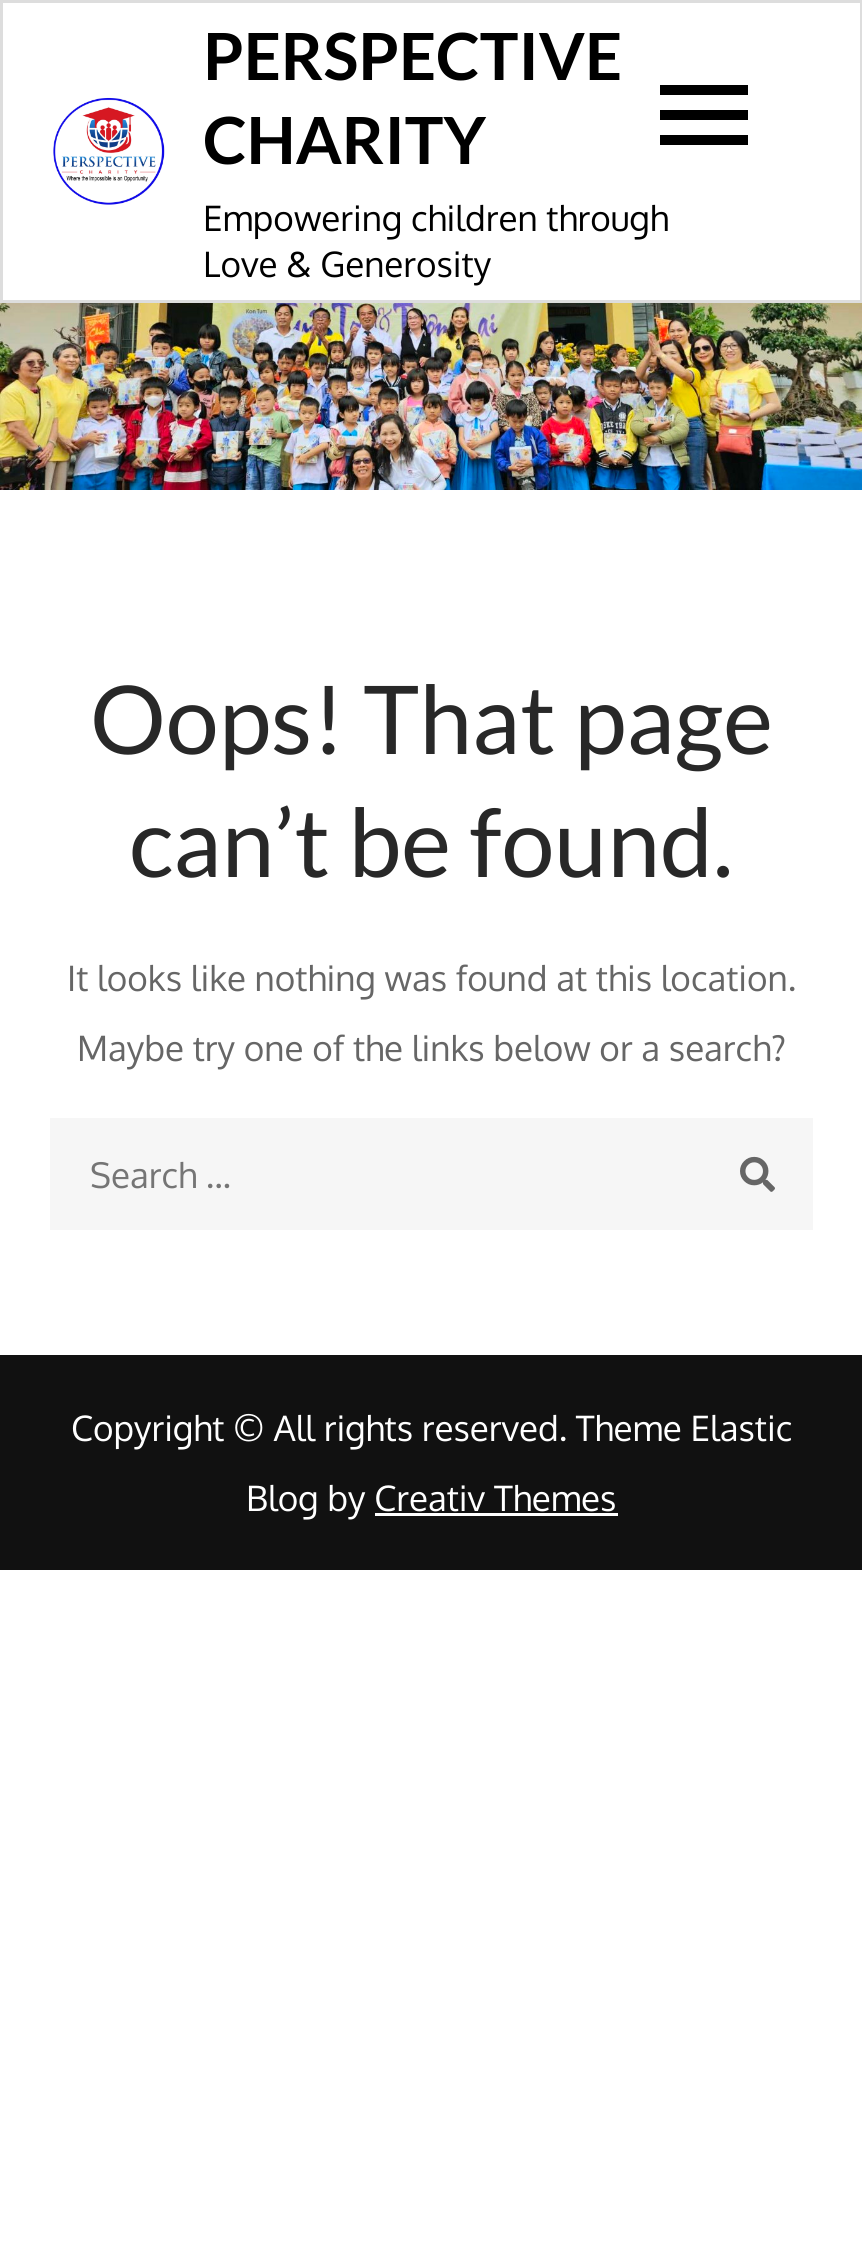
#include <cairo.h>
#include <math.h>
#include <stddef.h>


static void set_color(cairo_t *cr, unsigned color) {
    cairo_set_source_rgb(cr, (color >> 16) / 255.0, (color >> 8 & 255) / 255.0, (color & 255) / 255.0);
}

static void draw_text(cairo_t *cr, double x, double y, const char *s, const char *family, double size, int italic, int bold, unsigned color) {
    cairo_select_font_face(cr, family, italic ? CAIRO_FONT_SLANT_ITALIC : CAIRO_FONT_SLANT_NORMAL,
        bold ? CAIRO_FONT_WEIGHT_BOLD : CAIRO_FONT_WEIGHT_NORMAL);
    cairo_set_font_size(cr, size);
    set_color(cr, color);
    cairo_move_to(cr, x, y);
    cairo_show_text(cr, s);
}

static void fill_rect(cairo_t *cr, double x, double y, double w, double h, unsigned color) {
    set_color(cr, color);
    cairo_rectangle(cr, x, y, w, h);
    cairo_fill(cr);
}

static void draw_image(cairo_t *cr, const char *path, double x, double y, double w, double h) {
    cairo_surface_t *image = cairo_image_surface_create_from_png(path);
    cairo_save(cr);
    cairo_set_source_surface(cr, image, x, y);
    cairo_rectangle(cr, x, y, w, h);
    cairo_fill(cr);
    cairo_restore(cr);
    cairo_surface_destroy(image);
}

int main(void) {
    cairo_surface_t *surface = cairo_image_surface_create(CAIRO_FORMAT_RGB24, 862, 2247);
    cairo_t *cr = cairo_create(surface);
    cairo_font_options_t *options = cairo_font_options_create();
    cairo_font_options_set_hint_metrics(options, CAIRO_HINT_METRICS_OFF);
    cairo_font_options_set_hint_style(options, CAIRO_HINT_STYLE_NONE);
    cairo_set_font_options(cr, options);
    cairo_set_miter_limit(cr, 4);
    set_color(cr, 0xFFFFFF);
    cairo_paint(cr);
    cairo_rectangle(cr, 1.5, 1.5, 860, 300);
    set_color(cr, 0xDDDDDD);
    cairo_set_line_width(cr, 3);
    cairo_stroke(cr);
    draw_image(cr, "assets/img1.png", 53, 97, 112, 108);
    draw_text(cr, 203, 80, "PERSPECTIVE", "Lato", 65, 0, 1, 0x000000);
    draw_text(cr, 203, 164, "CHARITY", "Lato", 65, 0, 1, 0x000000);
    draw_text(cr, 203, 231, "Empowering children through", "Oxygen", 35, 0, 0, 0x000000);
    draw_text(cr, 203, 277, "Love & Generosity", "Oxygen", 35, 0, 0, 0x000000);
    fill_rect(cr, 660, 110, 88, 10, 0x000000);
    fill_rect(cr, 660, 85, 88, 10, 0x000000);
    fill_rect(cr, 660, 135, 88, 10, 0x000000);
    draw_image(cr, "assets/img2.png", 0, 303, 862, 187);
    draw_text(cr, 90, 754, "Oops! That page", "Lato", 95, 0, 0, 0x282828);
    draw_text(cr, 129, 877, "can’t be found.", "Lato", 95, 0, 0, 0x282828);
    draw_text(cr, 67, 991, "It looks like nothing was found at this location.", "Oxygen", 35, 0, 0, 0x666666);
    draw_text(cr, 77, 1061, "Maybe try one of the links below or a search?", "Oxygen", 35, 0, 0, 0x666666);
    fill_rect(cr, 50, 1118, 763, 112, 0xF6F6F6);
    draw_text(cr, 90, 1188, "Search ...", "Oxygen", 35, 0, 0, 0x757575);
    draw_image(cr, "assets/img3.png", 740, 1156, 35, 36);
    fill_rect(cr, 0, 1355, 862, 215, 0x111111);
    draw_text(cr, 71, 1441, "Copyright © All rights reserved. Theme Elastic", "Oxygen", 35, 0, 0, 0xFFFFFF);
    draw_text(cr, 246, 1511, "Blog by Creativ Themes", "Oxygen", 35, 0, 0, 0xFFFFFF);
    fill_rect(cr, 375, 1513, 243, 3, 0xFFFFFF);
    cairo_surface_write_to_png(surface, "output.png");
    cairo_font_options_destroy(options);
    cairo_destroy(cr);
    cairo_surface_destroy(surface);
    return 0;
}
